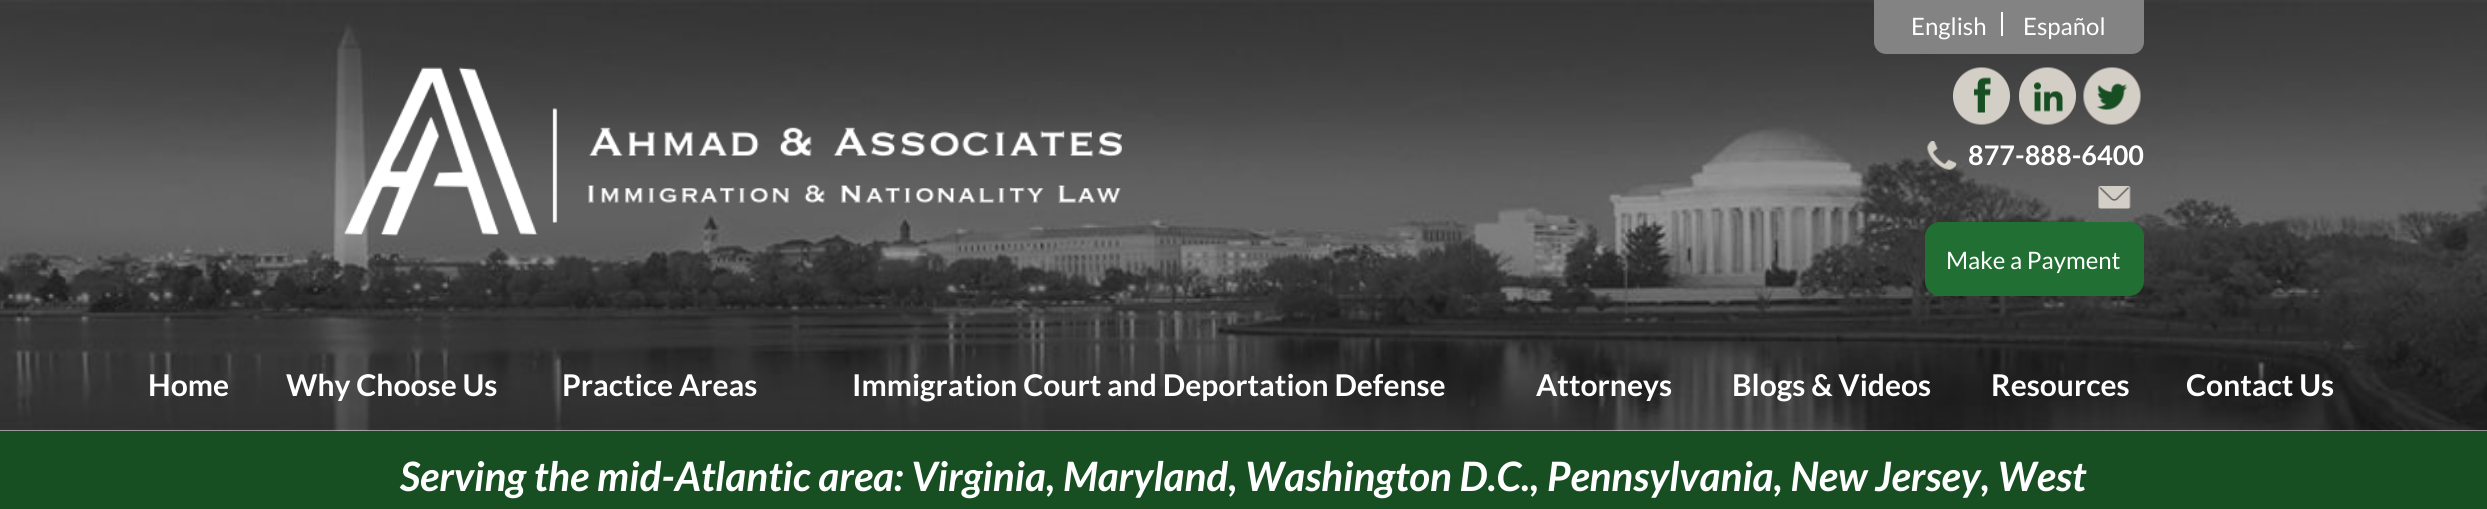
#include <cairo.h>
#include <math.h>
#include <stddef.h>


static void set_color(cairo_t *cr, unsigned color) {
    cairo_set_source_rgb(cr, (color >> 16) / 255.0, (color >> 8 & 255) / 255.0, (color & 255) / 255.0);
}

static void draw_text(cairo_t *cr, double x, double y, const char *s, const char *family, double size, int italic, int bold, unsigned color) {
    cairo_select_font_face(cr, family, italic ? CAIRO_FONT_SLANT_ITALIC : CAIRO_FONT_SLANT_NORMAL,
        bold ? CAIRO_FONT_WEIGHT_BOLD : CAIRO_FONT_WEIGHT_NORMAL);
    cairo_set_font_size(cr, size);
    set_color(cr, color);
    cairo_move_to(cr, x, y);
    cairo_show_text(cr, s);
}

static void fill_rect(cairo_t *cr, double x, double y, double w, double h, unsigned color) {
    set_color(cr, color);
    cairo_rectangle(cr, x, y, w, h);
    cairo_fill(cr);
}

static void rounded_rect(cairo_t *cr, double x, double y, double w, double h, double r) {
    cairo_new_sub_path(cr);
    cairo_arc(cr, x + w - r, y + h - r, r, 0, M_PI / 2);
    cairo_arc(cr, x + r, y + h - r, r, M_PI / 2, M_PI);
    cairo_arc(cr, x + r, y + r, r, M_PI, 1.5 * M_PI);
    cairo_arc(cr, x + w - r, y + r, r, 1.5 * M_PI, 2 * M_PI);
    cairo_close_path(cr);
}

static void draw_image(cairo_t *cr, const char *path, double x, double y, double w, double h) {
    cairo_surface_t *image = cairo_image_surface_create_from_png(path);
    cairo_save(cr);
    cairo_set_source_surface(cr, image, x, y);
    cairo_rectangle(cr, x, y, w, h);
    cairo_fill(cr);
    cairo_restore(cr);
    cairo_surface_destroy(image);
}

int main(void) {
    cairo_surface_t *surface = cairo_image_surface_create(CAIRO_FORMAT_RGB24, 2487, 509);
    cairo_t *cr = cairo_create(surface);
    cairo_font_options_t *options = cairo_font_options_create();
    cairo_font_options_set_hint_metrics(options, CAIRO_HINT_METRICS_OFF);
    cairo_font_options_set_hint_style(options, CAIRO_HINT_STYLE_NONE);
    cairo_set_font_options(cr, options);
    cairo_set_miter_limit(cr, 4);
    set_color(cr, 0xFFFFFF);
    cairo_paint(cr);
    draw_image(cr, "assets/img1.png", 0, 0, 2487, 431);
    set_color(cr, 0x838383);
    cairo_new_path(cr);
    cairo_move_to(cr, 1874, 0);
    cairo_line_to(cr, 2144, 0);
    cairo_line_to(cr, 2144, 42);
    cairo_curve_to(cr, 2144, 48.5, 2138.5, 54, 2132, 54);
    cairo_line_to(cr, 1886, 54);
    cairo_curve_to(cr, 1879.5, 54, 1874, 48.5, 1874, 42);
    cairo_close_path(cr);
    cairo_fill(cr);
    fill_rect(cr, 2001, 12, 2, 24, 0xFFFFFF);
    draw_text(cr, 1911, 35, "English", "Lato", 24, 0, 0, 0xFFFFFF);
    draw_text(cr, 2023, 35, "Español", "Lato", 24, 0, 0, 0xFFFFFF);
    draw_image(cr, "assets/img2.png", 344, 67, 778, 169);
    draw_image(cr, "assets/img3.png", 1953, 67, 57, 58);
    draw_image(cr, "assets/img4.png", 2019, 67, 57, 58);
    draw_image(cr, "assets/img5.png", 2083, 67, 58, 58);
    draw_image(cr, "assets/img6.png", 1927, 141, 30, 29);
    draw_text(cr, 1968, 165, "877-888-6400", "Lato", 27, 0, 1, 0xFFFFFF);
    draw_image(cr, "assets/img7.png", 2098, 186, 33, 23);
    set_color(cr, 0x216F32);
    rounded_rect(cr, 1925, 222, 219, 74, 15);
    cairo_fill(cr);
    draw_text(cr, 1946, 269, "Make a Payment", "Lato", 24, 0, 0, 0xFFFFFF);
    draw_text(cr, 148, 396, "Home", "Lato", 30, 0, 1, 0xFFFFFF);
    draw_text(cr, 286, 396, "Why Choose Us", "Lato", 30, 0, 1, 0xFFFFFF);
    draw_text(cr, 562, 396, "Practice Areas", "Lato", 30, 0, 1, 0xFFFFFF);
    draw_text(cr, 852, 396, "Immigration Court and Deportation Defense", "Lato", 30, 0, 1, 0xFFFFFF);
    draw_text(cr, 1536, 396, "Attorneys", "Lato", 30, 0, 1, 0xFFFFFF);
    draw_text(cr, 1732, 396, "Blogs & Videos", "Lato", 30, 0, 1, 0xFFFFFF);
    draw_text(cr, 1991, 396, "Resources", "Lato", 30, 0, 1, 0xFFFFFF);
    draw_text(cr, 2186, 396, "Contact Us", "Lato", 30, 0, 1, 0xFFFFFF);
    fill_rect(cr, 0, 431, 2487, 78, 0x174F23);
    draw_text(cr, 400, 491, "Serving the mid-Atlantic area: Virginia, Maryland, Washington D.C., Pennsylvania, New Jersey, West", "Lato", 40.5, 1, 1, 0xFFFFFF);
    cairo_surface_write_to_png(surface, "output.png");
    cairo_font_options_destroy(options);
    cairo_destroy(cr);
    cairo_surface_destroy(surface);
    return 0;
}
